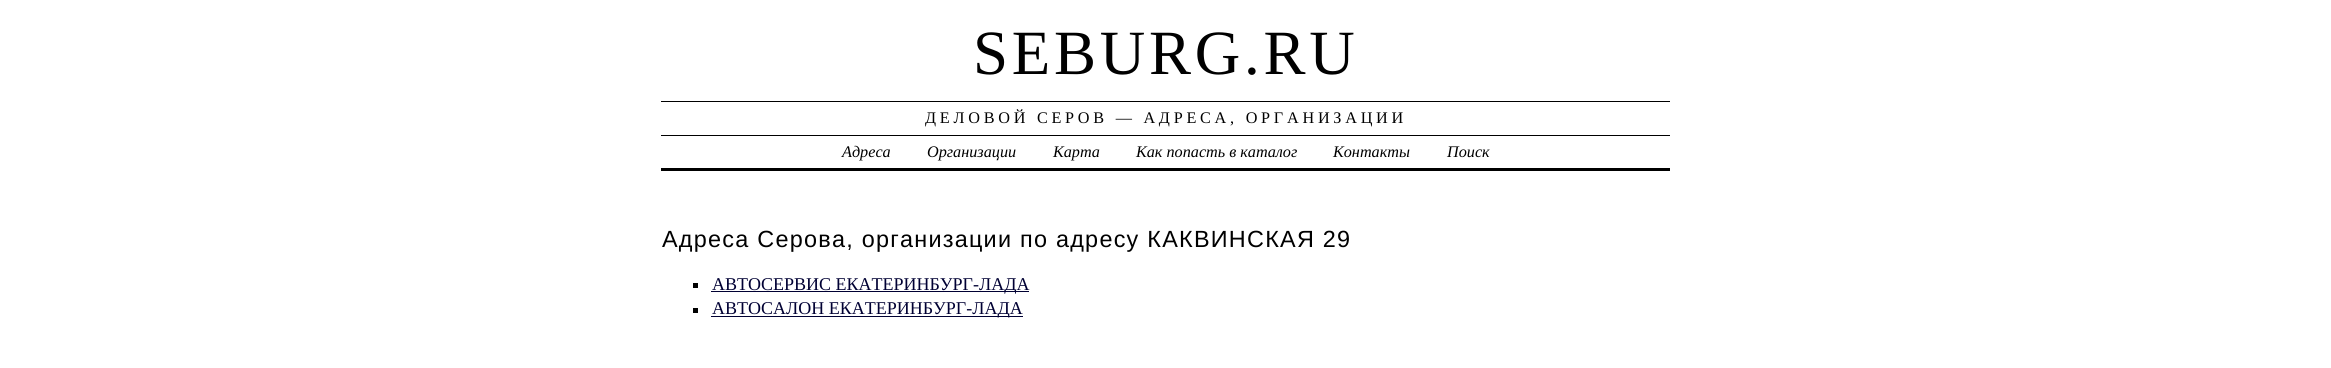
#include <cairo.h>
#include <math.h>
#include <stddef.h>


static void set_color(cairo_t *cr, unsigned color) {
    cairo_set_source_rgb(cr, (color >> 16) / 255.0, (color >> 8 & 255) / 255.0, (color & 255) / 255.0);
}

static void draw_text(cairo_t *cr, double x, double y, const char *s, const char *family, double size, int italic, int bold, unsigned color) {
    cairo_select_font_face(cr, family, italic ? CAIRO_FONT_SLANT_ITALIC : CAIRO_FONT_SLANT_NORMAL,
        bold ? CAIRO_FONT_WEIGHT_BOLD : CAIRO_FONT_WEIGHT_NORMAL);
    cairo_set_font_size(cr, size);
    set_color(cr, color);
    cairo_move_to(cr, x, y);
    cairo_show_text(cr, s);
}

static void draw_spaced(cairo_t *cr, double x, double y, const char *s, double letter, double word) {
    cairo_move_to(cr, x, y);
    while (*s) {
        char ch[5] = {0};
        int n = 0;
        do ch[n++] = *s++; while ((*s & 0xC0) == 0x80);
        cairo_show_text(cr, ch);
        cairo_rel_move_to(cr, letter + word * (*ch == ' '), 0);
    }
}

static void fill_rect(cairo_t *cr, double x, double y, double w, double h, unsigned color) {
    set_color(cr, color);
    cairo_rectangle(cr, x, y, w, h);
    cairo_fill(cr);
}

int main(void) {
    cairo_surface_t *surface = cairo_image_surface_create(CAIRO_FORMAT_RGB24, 2331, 368);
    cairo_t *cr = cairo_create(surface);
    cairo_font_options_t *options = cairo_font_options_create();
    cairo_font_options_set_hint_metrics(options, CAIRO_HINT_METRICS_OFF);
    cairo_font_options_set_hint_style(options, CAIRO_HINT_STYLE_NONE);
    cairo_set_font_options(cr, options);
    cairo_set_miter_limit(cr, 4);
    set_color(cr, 0xFFFFFF);
    cairo_paint(cr);
    cairo_select_font_face(cr, "Liberation Serif", CAIRO_FONT_SLANT_NORMAL, CAIRO_FONT_WEIGHT_NORMAL);
    cairo_set_font_size(cr, 63);
    set_color(cr, 0x000000);
    draw_spaced(cr, 973, 74, "SEBURG.RU", 3.75, 0);
    fill_rect(cr, 661, 101, 1009, 1, 0x000000);
    cairo_set_font_size(cr, 16.2);
    draw_spaced(cr, 925, 123, "ДЕЛОВОЙ СЕРОВ — АДРЕСА, ОРГАНИЗАЦИИ", 3.75, 0);
    fill_rect(cr, 661, 135, 1009, 1, 0x000000);
    fill_rect(cr, 661, 168, 1009, 3, 0x000000);
    draw_text(cr, 842, 157, "Адреса", "Liberation Serif", 16.2, 1, 0, 0x000000);
    draw_text(cr, 927, 157, "Организации", "Liberation Serif", 16.2, 1, 0, 0x000000);
    draw_text(cr, 1053, 157, "Карта", "Liberation Serif", 16.2, 1, 0, 0x000000);
    draw_text(cr, 1136, 157, "Как попасть в каталог", "Liberation Serif", 16.2, 1, 0, 0x000000);
    draw_text(cr, 1333, 157, "Контакты", "Liberation Serif", 16.2, 1, 0, 0x000000);
    draw_text(cr, 1447, 157, "Поиск", "Liberation Serif", 16.2, 1, 0, 0x000000);
    cairo_select_font_face(cr, "Liberation Sans", CAIRO_FONT_SLANT_NORMAL, CAIRO_FONT_WEIGHT_NORMAL);
    cairo_set_font_size(cr, 23.4);
    draw_spaced(cr, 662, 247, "Адреса Серова, организации по адресу КАКВИНСКАЯ 29", 1.25, 0);
    fill_rect(cr, 693, 283, 5, 5, 0x000000);
    fill_rect(cr, 711, 291, 318, 1, 0x000033);
    draw_text(cr, 712, 290, "АВТОСЕРВИС ЕКАТЕРИНБУРГ-ЛАДА", "Liberation Serif", 18, 0, 0, 0x000033);
    fill_rect(cr, 693, 308, 5, 5, 0x000000);
    fill_rect(cr, 711, 316, 312, 1, 0x000033);
    draw_text(cr, 712, 314, "АВТОСАЛОН ЕКАТЕРИНБУРГ-ЛАДА", "Liberation Serif", 18, 0, 0, 0x000033);
    cairo_surface_write_to_png(surface, "output.png");
    cairo_font_options_destroy(options);
    cairo_destroy(cr);
    cairo_surface_destroy(surface);
    return 0;
}
